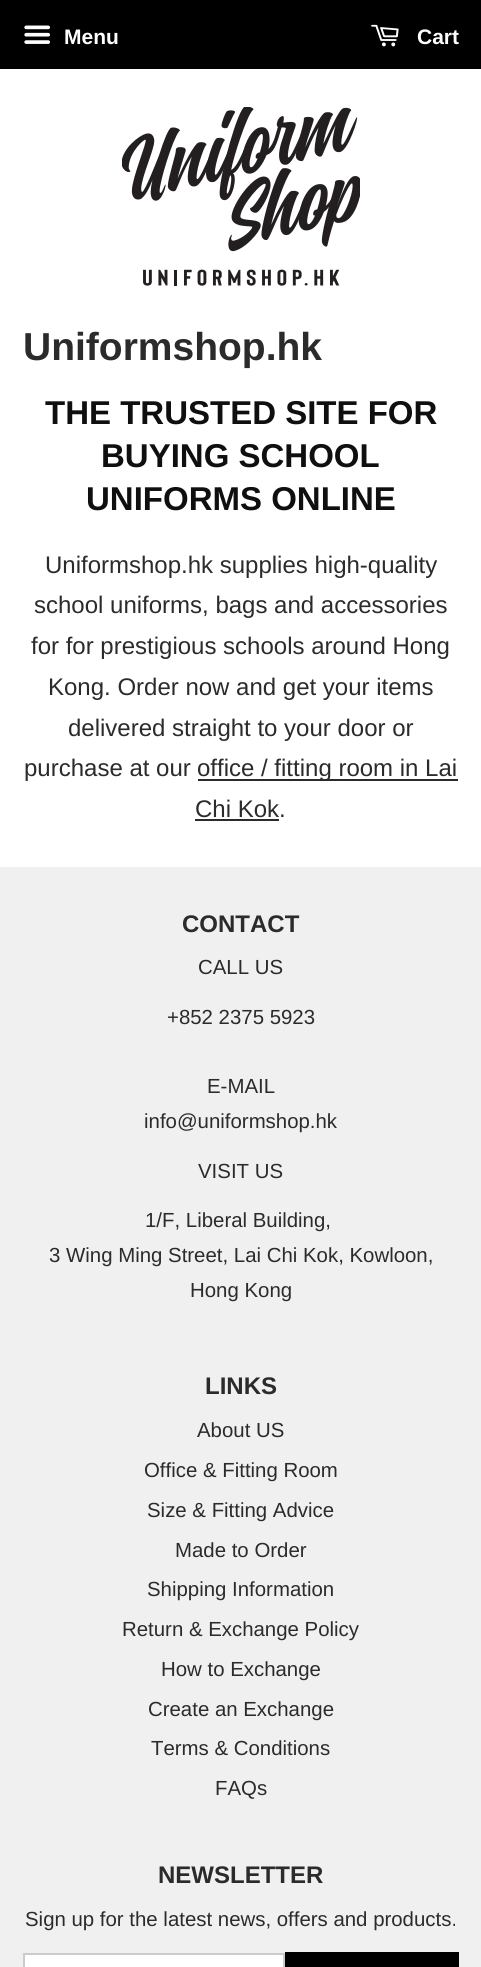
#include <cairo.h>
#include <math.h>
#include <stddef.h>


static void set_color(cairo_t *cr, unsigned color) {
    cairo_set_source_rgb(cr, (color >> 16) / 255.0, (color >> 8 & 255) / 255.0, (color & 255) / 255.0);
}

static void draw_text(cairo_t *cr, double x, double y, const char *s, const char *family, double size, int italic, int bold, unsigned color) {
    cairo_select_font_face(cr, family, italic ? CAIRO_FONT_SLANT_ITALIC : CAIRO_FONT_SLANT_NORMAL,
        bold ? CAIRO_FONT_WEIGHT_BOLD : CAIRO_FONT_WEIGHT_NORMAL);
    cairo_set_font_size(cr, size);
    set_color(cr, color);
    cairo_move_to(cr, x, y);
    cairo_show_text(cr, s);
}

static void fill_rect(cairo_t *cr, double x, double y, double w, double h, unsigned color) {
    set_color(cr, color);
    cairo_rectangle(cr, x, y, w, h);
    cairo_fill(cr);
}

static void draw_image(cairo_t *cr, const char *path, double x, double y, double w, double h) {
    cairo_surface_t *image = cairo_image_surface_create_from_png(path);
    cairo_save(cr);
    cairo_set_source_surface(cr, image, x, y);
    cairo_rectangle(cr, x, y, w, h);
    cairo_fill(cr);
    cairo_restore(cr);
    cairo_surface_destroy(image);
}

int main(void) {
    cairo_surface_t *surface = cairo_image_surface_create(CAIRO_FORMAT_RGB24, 481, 1967);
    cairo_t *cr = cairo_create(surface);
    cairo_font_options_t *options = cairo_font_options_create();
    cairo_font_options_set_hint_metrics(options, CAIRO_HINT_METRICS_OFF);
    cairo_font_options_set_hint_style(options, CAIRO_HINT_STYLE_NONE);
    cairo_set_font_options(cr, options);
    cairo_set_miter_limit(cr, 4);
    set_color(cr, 0xFFFFFF);
    cairo_paint(cr);
    fill_rect(cr, 0, 0, 481, 69, 0x000000);
    draw_image(cr, "assets/img1.png", 24, 25, 26, 19);
    draw_text(cr, 64, 44, "Menu", "Liberation Sans", 21, 0, 1, 0xFFFFFF);
    draw_image(cr, "assets/img2.png", 371, 24, 28, 23);
    draw_text(cr, 417, 44, "Cart", "Liberation Sans", 21, 0, 1, 0xFFFFFF);
    draw_image(cr, "assets/img3.png", 122, 107, 238, 179);
    draw_text(cr, 23, 360, "Uniformshop.hk", "Liberation Sans", 39, 0, 1, 0x2B2B2B);
    draw_text(cr, 45, 424, "THE TRUSTED SITE FOR", "Liberation Sans", 33, 0, 1, 0x0F0F0F);
    draw_text(cr, 101, 467, "BUYING SCHOOL", "Liberation Sans", 33, 0, 1, 0x0F0F0F);
    draw_text(cr, 86, 510, "UNIFORMS ONLINE", "Liberation Sans", 33, 0, 1, 0x0F0F0F);
    draw_text(cr, 45, 573, "Uniformshop.hk supplies high-quality", "Liberation Sans", 24, 0, 0, 0x2B2B2B);
    draw_text(cr, 34, 613, "school uniforms, bags and accessories", "Liberation Sans", 24, 0, 0, 0x2B2B2B);
    draw_text(cr, 31, 654, "for for prestigious schools around Hong", "Liberation Sans", 24, 0, 0, 0x2B2B2B);
    draw_text(cr, 48, 695, "Kong. Order now and get your items", "Liberation Sans", 24, 0, 0, 0x2B2B2B);
    draw_text(cr, 68, 736, "delivered straight to your door or", "Liberation Sans", 24, 0, 0, 0x2B2B2B);
    draw_text(cr, 24, 776, "purchase at our", "Liberation Sans", 24, 0, 0, 0x2B2B2B);
    fill_rect(cr, 198, 779, 260, 2, 0x2B2B2B);
    draw_text(cr, 197, 776, "office / fitting room in Lai", "Liberation Sans", 24, 0, 0, 0x2B2B2B);
    draw_text(cr, 195, 817, "Chi Kok.", "Liberation Sans", 24, 0, 0, 0x2B2B2B);
    fill_rect(cr, 195, 819, 84, 2, 0x2B2B2B);
    fill_rect(cr, 0, 867, 481, 1100, 0xF0F0F0);
    draw_text(cr, 182, 932, "CONTACT", "Liberation Sans", 24, 0, 1, 0x2B2B2B);
    draw_text(cr, 198, 974, "CALL US", "Liberation Sans", 20.4, 0, 0, 0x2B2B2B);
    draw_text(cr, 167, 1024, "+852 2375 5923", "Liberation Sans", 20.4, 0, 0, 0x2B2B2B);
    draw_text(cr, 207, 1093, "E-MAIL", "Liberation Sans", 20.4, 0, 0, 0x2B2B2B);
    draw_text(cr, 144, 1128, "info@uniformshop.hk", "Liberation Sans", 20.4, 0, 0, 0x2B2B2B);
    draw_text(cr, 198, 1178, "VISIT US", "Liberation Sans", 20.4, 0, 0, 0x2B2B2B);
    draw_text(cr, 145, 1227, "1/F, Liberal Building,", "Liberation Sans", 20.4, 0, 0, 0x2B2B2B);
    draw_text(cr, 49, 1262, "3 Wing Ming Street, Lai Chi Kok, Kowloon,", "Liberation Sans", 20.4, 0, 0, 0x2B2B2B);
    draw_text(cr, 190, 1297, "Hong Kong", "Liberation Sans", 20.4, 0, 0, 0x2B2B2B);
    draw_text(cr, 205, 1394, "LINKS", "Liberation Sans", 24, 0, 1, 0x2B2B2B);
    draw_text(cr, 197, 1437, "About US", "Liberation Sans", 20.4, 0, 0, 0x2B2B2B);
    draw_text(cr, 144, 1477, "Office & Fitting Room", "Liberation Sans", 20.4, 0, 0, 0x2B2B2B);
    draw_text(cr, 147, 1517, "Size & Fitting Advice", "Liberation Sans", 20.4, 0, 0, 0x2B2B2B);
    draw_text(cr, 175, 1557, "Made to Order", "Liberation Sans", 20.4, 0, 0, 0x2B2B2B);
    draw_text(cr, 147, 1596, "Shipping Information", "Liberation Sans", 20.4, 0, 0, 0x2B2B2B);
    draw_text(cr, 122, 1636, "Return & Exchange Policy", "Liberation Sans", 20.4, 0, 0, 0x2B2B2B);
    draw_text(cr, 161, 1676, "How to Exchange", "Liberation Sans", 20.4, 0, 0, 0x2B2B2B);
    draw_text(cr, 148, 1716, "Create an Exchange", "Liberation Sans", 20.4, 0, 0, 0x2B2B2B);
    draw_text(cr, 151, 1755, "Terms & Conditions", "Liberation Sans", 20.4, 0, 0, 0x2B2B2B);
    draw_text(cr, 215, 1795, "FAQs", "Liberation Sans", 20.4, 0, 0, 0x2B2B2B);
    draw_text(cr, 158, 1883, "NEWSLETTER", "Liberation Sans", 24, 0, 1, 0x2B2B2B);
    draw_text(cr, 25, 1926, "Sign up for the latest news, offers and products.", "Liberation Sans", 20.4, 0, 0, 0x2B2B2B);
    set_color(cr, 0xFFFFFF);
    cairo_rectangle(cr, 24, 1954, 260, 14);
    cairo_fill_preserve(cr);
    set_color(cr, 0xCDCBC8);
    cairo_stroke(cr);
    fill_rect(cr, 285, 1952, 174, 15, 0x000000);
    cairo_surface_write_to_png(surface, "output.png");
    cairo_font_options_destroy(options);
    cairo_destroy(cr);
    cairo_surface_destroy(surface);
    return 0;
}
